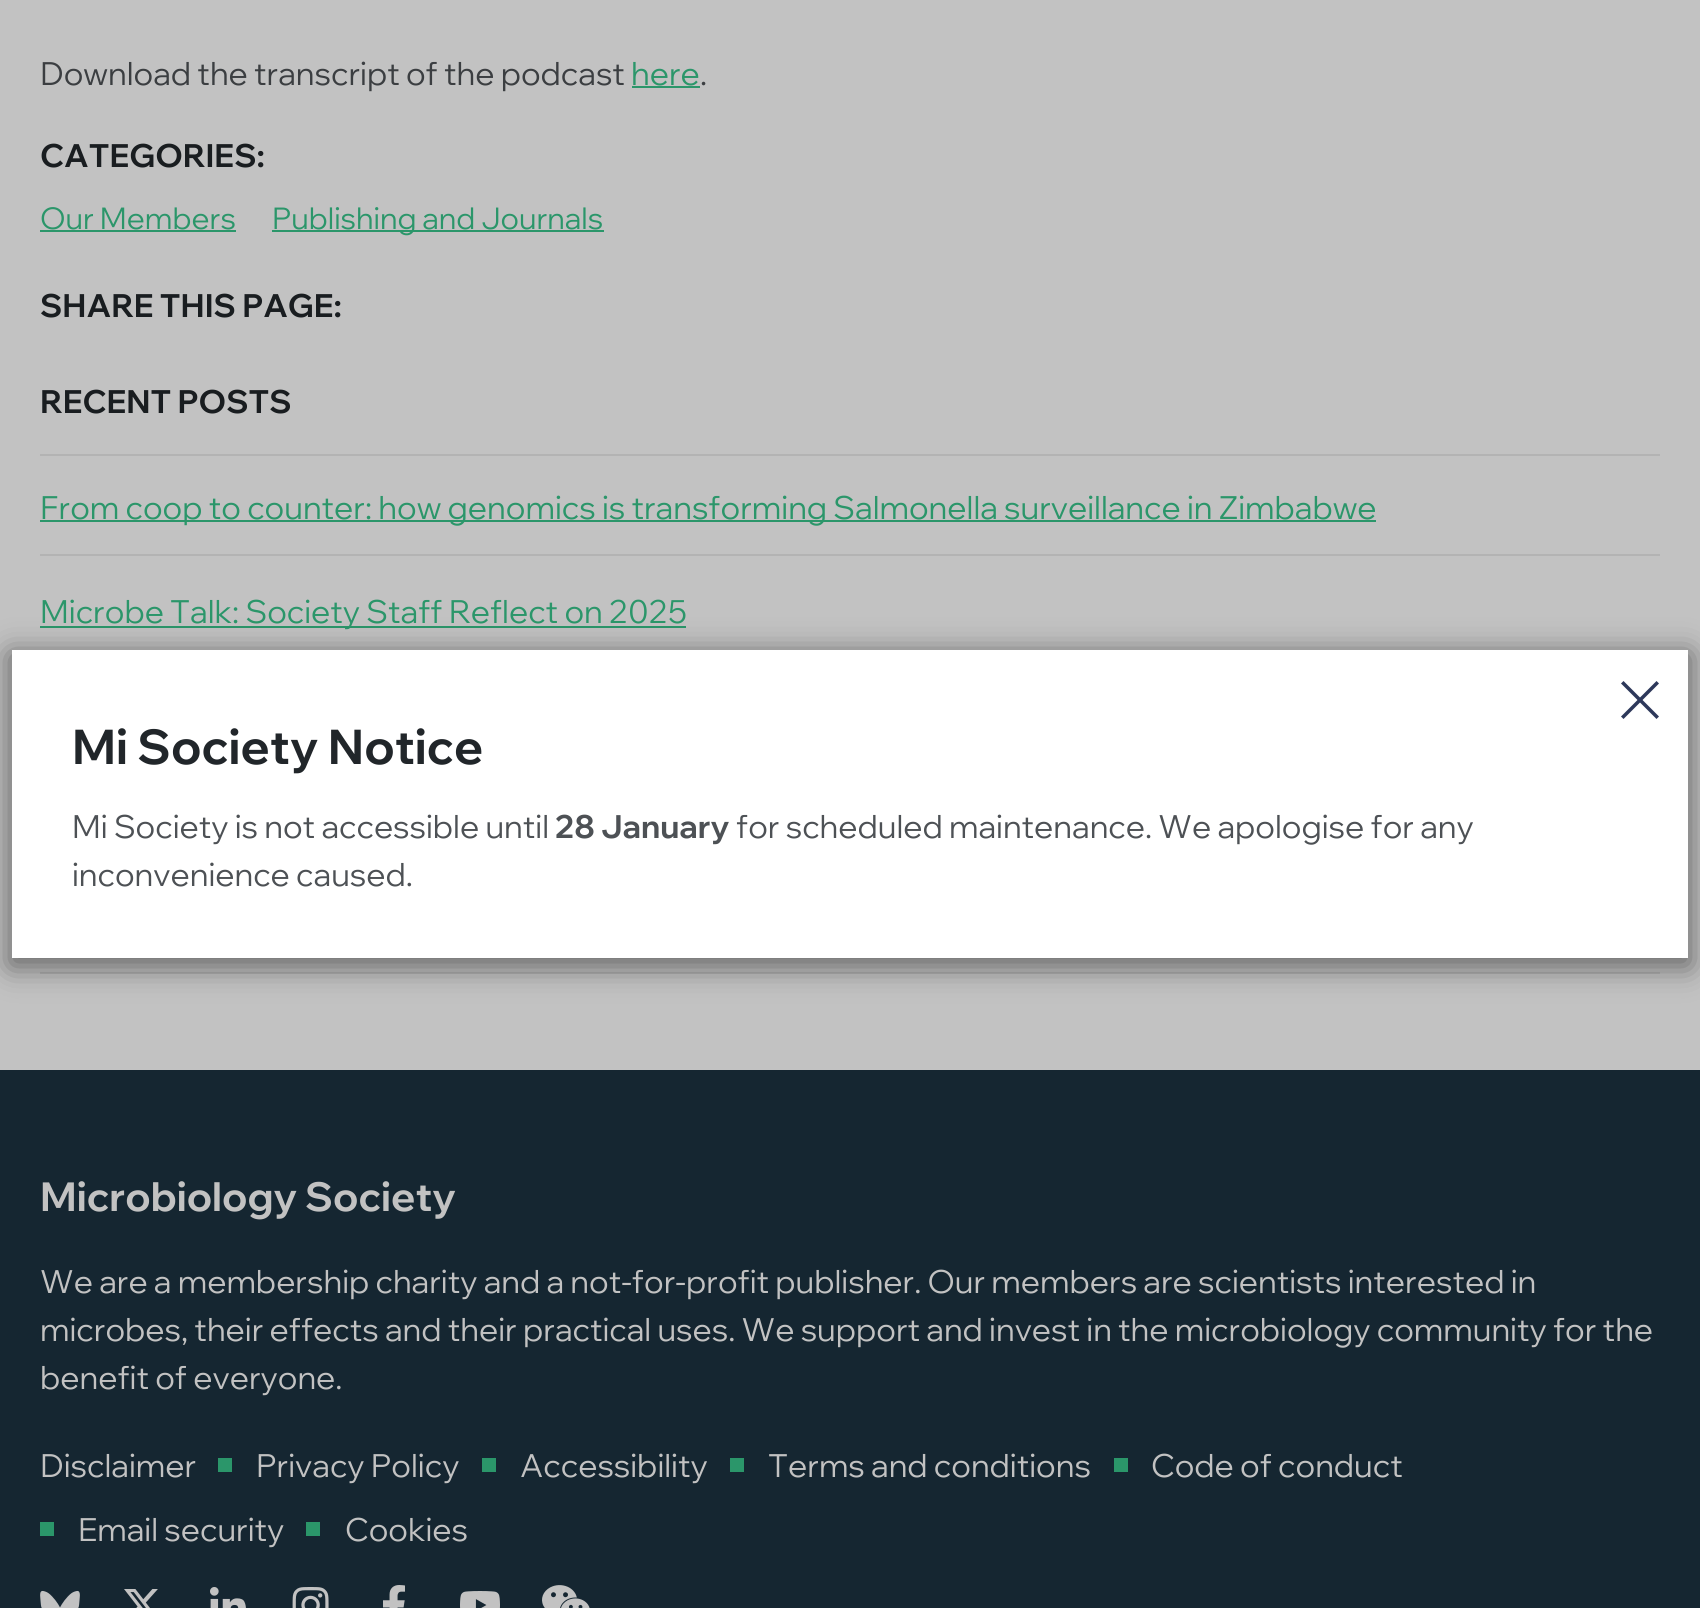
#include <cairo.h>
#include <math.h>
#include <stddef.h>


static void set_color(cairo_t *cr, unsigned color) {
    cairo_set_source_rgb(cr, (color >> 16) / 255.0, (color >> 8 & 255) / 255.0, (color & 255) / 255.0);
}

static void draw_text(cairo_t *cr, double x, double y, const char *s, const char *family, double size, int italic, int bold, unsigned color) {
    cairo_select_font_face(cr, family, italic ? CAIRO_FONT_SLANT_ITALIC : CAIRO_FONT_SLANT_NORMAL,
        bold ? CAIRO_FONT_WEIGHT_BOLD : CAIRO_FONT_WEIGHT_NORMAL);
    cairo_set_font_size(cr, size);
    set_color(cr, color);
    cairo_move_to(cr, x, y);
    cairo_show_text(cr, s);
}

static void fill_rect(cairo_t *cr, double x, double y, double w, double h, unsigned color) {
    set_color(cr, color);
    cairo_rectangle(cr, x, y, w, h);
    cairo_fill(cr);
}

static void rounded_rect(cairo_t *cr, double x, double y, double w, double h, double r) {
    cairo_new_sub_path(cr);
    cairo_arc(cr, x + w - r, y + h - r, r, 0, M_PI / 2);
    cairo_arc(cr, x + r, y + h - r, r, M_PI / 2, M_PI);
    cairo_arc(cr, x + r, y + r, r, M_PI, 1.5 * M_PI);
    cairo_arc(cr, x + w - r, y + r, r, 1.5 * M_PI, 2 * M_PI);
    cairo_close_path(cr);
}

static void draw_shadow(cairo_t *cr, double x, double y, double w, double h, double r, double blur, double alpha) {
    cairo_push_group_with_content(cr, CAIRO_CONTENT_ALPHA);
    cairo_set_operator(cr, CAIRO_OPERATOR_SOURCE);
    for (int i = 15; i >= -15 && fmin(w, h) + blur * i / 3 > 0; i -= 2) {
        double e = blur * i / 6;
        cairo_set_source_rgba(cr, 0, 0, 0, alpha * erfc((i - 1) / 8.5) / 2);
        rounded_rect(cr, x - e, y - e, w + 2 * e, h + 2 * e, fmax(0, fmin(r + e + blur * .6, fmin(w, h) / 2 + e)));
        cairo_fill(cr);
    }
    cairo_pattern_t *soft = cairo_pop_group(cr);
    cairo_mask(cr, soft);
    cairo_pattern_destroy(soft);
}

static void draw_image(cairo_t *cr, const char *path, double x, double y, double w, double h) {
    cairo_surface_t *image = cairo_image_surface_create_from_png(path);
    cairo_save(cr);
    cairo_set_source_surface(cr, image, x, y);
    cairo_rectangle(cr, x, y, w, h);
    cairo_fill(cr);
    cairo_restore(cr);
    cairo_surface_destroy(image);
}

int main(void) {
    cairo_surface_t *surface = cairo_image_surface_create(CAIRO_FORMAT_RGB24, 1700, 1608);
    cairo_t *cr = cairo_create(surface);
    cairo_font_options_t *options = cairo_font_options_create();
    cairo_font_options_set_hint_metrics(options, CAIRO_HINT_METRICS_OFF);
    cairo_font_options_set_hint_style(options, CAIRO_HINT_STYLE_NONE);
    cairo_set_font_options(cr, options);
    cairo_set_miter_limit(cr, 4);
    set_color(cr, 0xC2C2C2);
    cairo_paint(cr);
    draw_text(cr, 40, 85, "Download the transcript of the podcast", "Wix Madefor Display", 32, 0, 0, 0x3B3E41);
    draw_text(cr, 631, 85, "here", "Wix Madefor Display", 32, 0, 0, 0x2B966A);
    fill_rect(cr, 632, 86, 68, 2, 0x2B966A);
    draw_text(cr, 700, 85, ".", "Wix Madefor Display", 32, 0, 0, 0x3B3E41);
    draw_text(cr, 40, 167, "CATEGORIES:", "Wix Madefor Display", 32, 0, 1, 0x191D20);
    draw_text(cr, 40, 229, "Our Members", "Wix Madefor Display", 30, 0, 0, 0x2B966A);
    fill_rect(cr, 40, 230, 196, 2, 0x2B966A);
    fill_rect(cr, 272, 230, 332, 2, 0x2B966A);
    draw_text(cr, 272, 229, "Publishing and Journals", "Wix Madefor Display", 30, 0, 0, 0x2B966A);
    draw_text(cr, 40, 317, "SHARE THIS PAGE:", "Wix Madefor Display", 32, 0, 1, 0x191D20);
    fill_rect(cr, 40, 454, 1620, 2, 0xB3B3B3);
    draw_text(cr, 40, 413, "RECENT POSTS", "Wix Madefor Display", 32, 0, 1, 0x191D20);
    fill_rect(cr, 40, 554, 1620, 2, 0xB3B3B3);
    fill_rect(cr, 40, 520, 1336, 2, 0x2B966A);
    draw_text(cr, 40, 519, "From coop to counter: how genomics is transforming Salmonella surveillance in Zimbabwe", "Wix Madefor Display", 32, 0, 0, 0x2B966A);
    fill_rect(cr, 40, 626, 646, 2, 0x2B966A);
    draw_text(cr, 40, 623, "Microbe Talk: Society Staff Reflect on 2025", "Wix Madefor Display", 32, 0, 0, 0x2B966A);
    fill_rect(cr, 40, 972, 1620, 2, 0xB3B3B3);
    set_color(cr, 0x000000);
    draw_shadow(cr, 10, 654, 1680, 312, 0, 15, 0.5);
    fill_rect(cr, 12, 650, 1676, 308, 0xFFFFFF);
    set_color(cr, 0x2D385A);
    cairo_new_path(cr);
    cairo_move_to(cr, 1659, 716.5);
    cairo_line_to(cr, 1656.5, 719);
    cairo_line_to(cr, 1621, 683.5);
    cairo_line_to(cr, 1623.5, 681);
    cairo_close_path(cr);
    cairo_fill(cr);
    cairo_new_path(cr);
    cairo_move_to(cr, 1656.5, 681);
    cairo_line_to(cr, 1659, 683.5);
    cairo_line_to(cr, 1623.5, 719);
    cairo_line_to(cr, 1621, 716.5);
    cairo_close_path(cr);
    cairo_fill(cr);
    draw_text(cr, 72, 764, "Mi Society Notice", "Wix Madefor Display", 48, 0, 1, 0x21262A);
    draw_text(cr, 72, 838, "Mi Society is not accessible until", "Wix Madefor Display", 32, 0, 0, 0x4D5155);
    draw_text(cr, 555, 838, "28 January", "Wix Madefor Display", 32, 0, 1, 0x4D5155);
    draw_text(cr, 736, 838, "for scheduled maintenance. We apologise for any", "Wix Madefor Display", 32, 0, 0, 0x4D5155);
    draw_text(cr, 72, 886, "inconvenience caused.", "Wix Madefor Display", 32, 0, 0, 0x4D5155);
    fill_rect(cr, 0, 1070, 1700, 538, 0x152631);
    draw_text(cr, 40, 1211, "Microbiology Society", "Wix Madefor Display", 40, 0, 1, 0xC2C2C2);
    draw_text(cr, 40, 1293, "We are a membership charity and a not-for-profit publisher. Our members are scientists interested in", "Wix Madefor Display", 32, 0, 0, 0xC2C2C2);
    draw_text(cr, 40, 1341, "microbes, their effects and their practical uses. We support and invest in the microbiology community for the", "Wix Madefor Display", 32, 0, 0, 0xC2C2C2);
    draw_text(cr, 40, 1389, "benefit of everyone.", "Wix Madefor Display", 32, 0, 0, 0xC2C2C2);
    draw_text(cr, 40, 1477, "Disclaimer", "Wix Madefor Display", 32, 0, 0, 0xC2C2C2);
    fill_rect(cr, 218, 1458, 14, 14, 0x2B966A);
    draw_text(cr, 256, 1477, "Privacy Policy", "Wix Madefor Display", 32, 0, 0, 0xC2C2C2);
    fill_rect(cr, 482, 1458, 14, 14, 0x2B966A);
    draw_text(cr, 520, 1477, "Accessibility", "Wix Madefor Display", 32, 0, 0, 0xC2C2C2);
    fill_rect(cr, 730, 1458, 14, 14, 0x2B966A);
    draw_text(cr, 768, 1477, "Terms and conditions", "Wix Madefor Display", 32, 0, 0, 0xC2C2C2);
    fill_rect(cr, 1114, 1458, 14, 14, 0x2B966A);
    draw_text(cr, 1151, 1477, "Code of conduct", "Wix Madefor Display", 32, 0, 0, 0xC2C2C2);
    fill_rect(cr, 40, 1522, 14, 14, 0x2B966A);
    draw_text(cr, 78, 1541, "Email security", "Wix Madefor Display", 32, 0, 0, 0xC2C2C2);
    fill_rect(cr, 306, 1522, 14, 14, 0x2B966A);
    draw_text(cr, 345, 1541, "Cookies", "Wix Madefor Display", 32, 0, 0, 0xC2C2C2);
    draw_image(cr, "assets/img1.png", 40, 1590, 40, 18);
    draw_image(cr, "assets/img2.png", 124, 1589, 34, 19);
    draw_image(cr, "assets/img3.png", 210, 1587, 36, 21);
    draw_image(cr, "assets/img4.png", 292, 1587, 37, 21);
    draw_image(cr, "assets/img5.png", 383, 1585, 22, 23);
    draw_image(cr, "assets/img6.png", 460, 1591, 40, 17);
    draw_image(cr, "assets/img7.png", 542, 1585, 48, 23);
    cairo_surface_write_to_png(surface, "output.png");
    cairo_font_options_destroy(options);
    cairo_destroy(cr);
    cairo_surface_destroy(surface);
    return 0;
}
